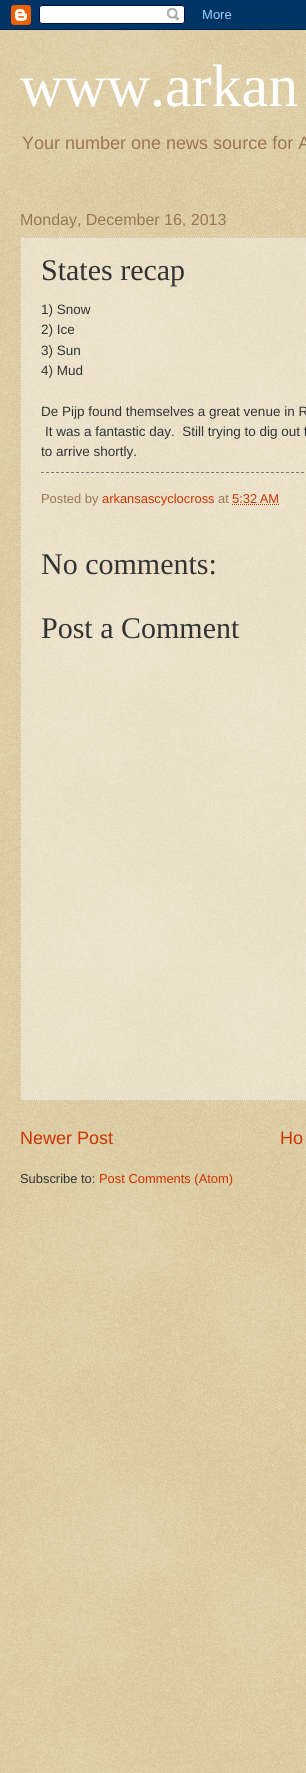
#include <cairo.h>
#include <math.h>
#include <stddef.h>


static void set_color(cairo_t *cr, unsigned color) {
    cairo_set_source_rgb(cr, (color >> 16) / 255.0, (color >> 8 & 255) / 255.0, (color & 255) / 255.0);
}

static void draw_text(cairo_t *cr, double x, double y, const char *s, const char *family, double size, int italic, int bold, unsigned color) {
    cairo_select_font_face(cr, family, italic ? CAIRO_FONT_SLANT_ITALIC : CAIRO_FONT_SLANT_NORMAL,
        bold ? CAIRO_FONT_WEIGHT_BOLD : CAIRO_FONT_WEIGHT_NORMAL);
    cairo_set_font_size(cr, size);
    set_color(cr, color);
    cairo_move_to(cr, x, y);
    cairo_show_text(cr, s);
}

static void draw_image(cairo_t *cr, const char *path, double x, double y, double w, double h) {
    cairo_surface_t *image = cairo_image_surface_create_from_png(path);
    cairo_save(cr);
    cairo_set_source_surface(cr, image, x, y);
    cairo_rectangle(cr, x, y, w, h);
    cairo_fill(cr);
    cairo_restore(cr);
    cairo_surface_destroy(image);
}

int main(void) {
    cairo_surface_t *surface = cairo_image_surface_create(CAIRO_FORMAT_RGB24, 306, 1773);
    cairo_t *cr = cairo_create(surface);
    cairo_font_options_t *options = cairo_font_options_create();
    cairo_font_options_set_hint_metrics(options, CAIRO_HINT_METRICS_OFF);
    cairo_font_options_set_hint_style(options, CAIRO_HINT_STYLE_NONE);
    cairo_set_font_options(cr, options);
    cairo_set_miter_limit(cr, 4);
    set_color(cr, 0xC0A154);
    cairo_paint(cr);
    draw_image(cr, "assets/img1.png", 0, 30, 306, 1743);
    draw_image(cr, "assets/img2.png", 0, 0, 306, 30);
    draw_text(cr, 20, 106, "www.arkan", "Liberation Serif", 60, 0, 0, 0xFFFFFF);
    draw_text(cr, 22, 149, "Your number one news source for A", "Liberation Sans", 18, 0, 0, 0x997755);
    draw_text(cr, 20, 225, "Monday, December 16, 2013", "Liberation Sans", 16, 0, 0, 0x997755);
    cairo_set_source_rgba(cr, 1, 1, 1, 0.4);
    cairo_rectangle(cr, 20, 237, 286, 864);
    cairo_fill(cr);
    cairo_new_path(cr);
    cairo_move_to(cr, 20, 237.5);
    cairo_line_to(cr, 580, 237.5);
    set_color(cr, 0xCCBB99);
    cairo_set_line_width(cr, 1);
    cairo_set_dash(cr, (double[]){1, 1}, 2, 0);
    cairo_stroke(cr);
    cairo_new_path(cr);
    cairo_move_to(cr, 20, 1100.5);
    cairo_line_to(cr, 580, 1100.5);
    cairo_stroke(cr);
    cairo_new_path(cr);
    cairo_move_to(cr, 20.5, 237);
    cairo_line_to(cr, 20.5, 1101);
    cairo_stroke(cr);
    draw_text(cr, 41, 280, "States recap", "Liberation Serif", 30, 0, 0, 0x333333);
    draw_text(cr, 41, 314, "1) Snow", "Liberation Sans", 13.5, 0, 0, 0x333333);
    draw_text(cr, 41, 334, "2) Ice", "Liberation Sans", 13.5, 0, 0, 0x333333);
    draw_text(cr, 41, 355, "3) Sun", "Liberation Sans", 13.5, 0, 0, 0x333333);
    draw_text(cr, 41, 375, "4) Mud", "Liberation Sans", 13.5, 0, 0, 0x333333);
    draw_text(cr, 41, 416, "De Pijp found themselves a great venue in R", "Liberation Sans", 13.5, 0, 0, 0x333333);
    draw_text(cr, 45, 436, "It was a fantastic day.  Still trying to dig out f", "Liberation Sans", 13.5, 0, 0, 0x333333);
    draw_text(cr, 41, 456, "to arrive shortly.", "Liberation Sans", 13.5, 0, 0, 0x333333);
    cairo_new_path(cr);
    cairo_move_to(cr, 41, 472.5);
    cairo_line_to(cr, 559, 472.5);
    set_color(cr, 0x777777);
    cairo_set_dash(cr, (double[]){3, 2}, 2, 0);
    cairo_stroke(cr);
    draw_text(cr, 41, 503, "Posted by", "Liberation Sans", 12.9, 0, 0, 0x997755);
    draw_text(cr, 102, 503, "arkansascyclocross", "Liberation Sans", 12.9, 0, 0, 0xCC3300);
    draw_text(cr, 218, 503, "at", "Liberation Sans", 12.9, 0, 0, 0x997755);
    draw_text(cr, 232, 503, "5:32 AM", "Liberation Sans", 12.9, 0, 0, 0xCC3300);
    cairo_new_path(cr);
    cairo_move_to(cr, 232, 504.5);
    cairo_line_to(cr, 279, 504.5);
    cairo_set_dash(cr, (double[]){1, 1}, 2, 0);
    cairo_stroke(cr);
    draw_text(cr, 41, 574, "No comments:", "Liberation Serif", 30, 0, 0, 0x333333);
    draw_text(cr, 41, 638, "Post a Comment", "Liberation Serif", 30, 0, 0, 0x333333);
    draw_text(cr, 20, 1144, "Newer Post", "Liberation Sans", 18, 0, 0, 0xCC3300);
    draw_text(cr, 280, 1144, "Ho", "Liberation Sans", 18, 0, 0, 0xCC3300);
    draw_text(cr, 20, 1183, "Subscribe to:", "Liberation Sans", 12.9, 0, 0, 0x333333);
    draw_text(cr, 99, 1183, "Post Comments (Atom)", "Liberation Sans", 12.9, 0, 0, 0xCC3300);
    cairo_surface_write_to_png(surface, "output.png");
    cairo_font_options_destroy(options);
    cairo_destroy(cr);
    cairo_surface_destroy(surface);
    return 0;
}
